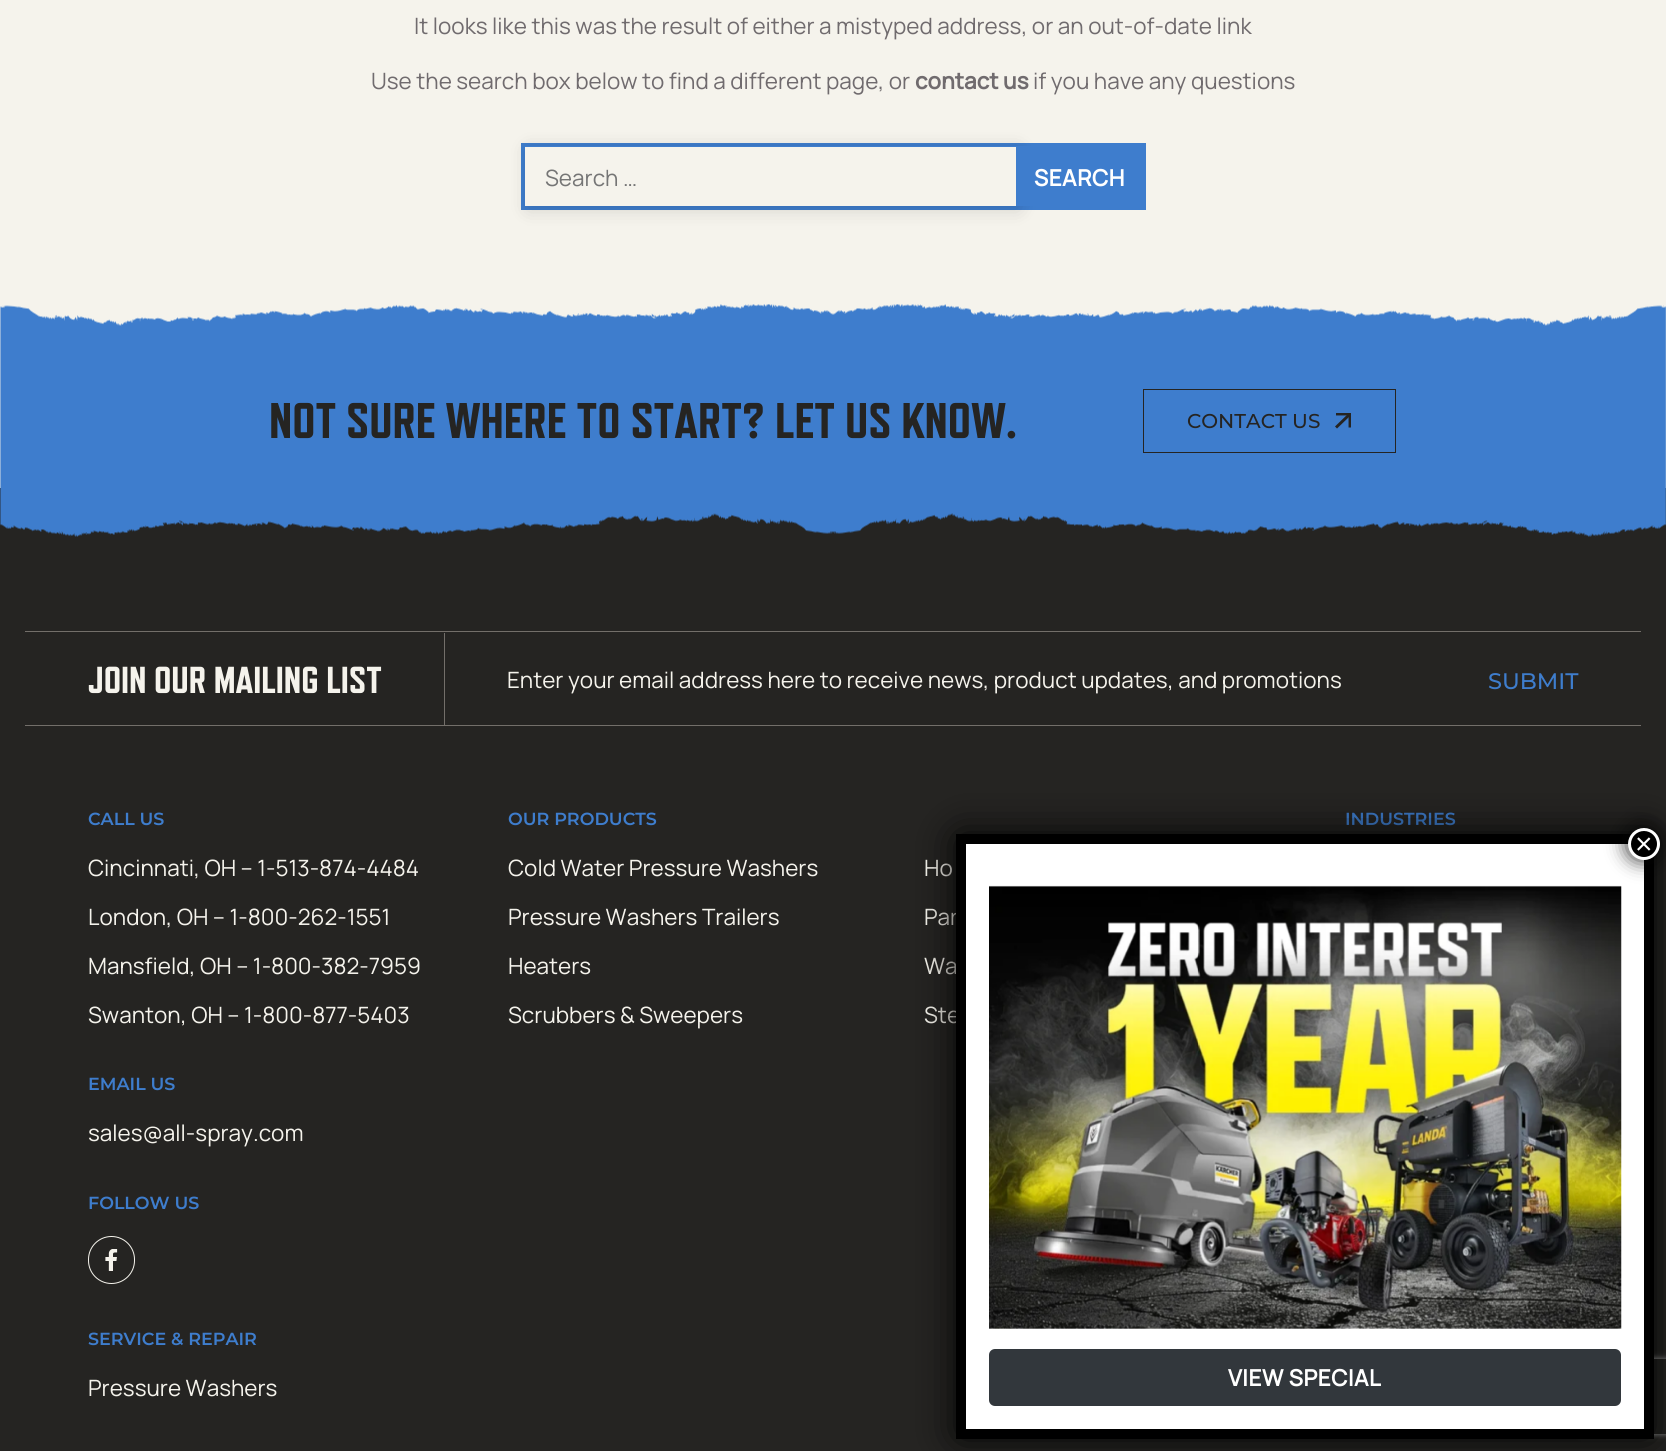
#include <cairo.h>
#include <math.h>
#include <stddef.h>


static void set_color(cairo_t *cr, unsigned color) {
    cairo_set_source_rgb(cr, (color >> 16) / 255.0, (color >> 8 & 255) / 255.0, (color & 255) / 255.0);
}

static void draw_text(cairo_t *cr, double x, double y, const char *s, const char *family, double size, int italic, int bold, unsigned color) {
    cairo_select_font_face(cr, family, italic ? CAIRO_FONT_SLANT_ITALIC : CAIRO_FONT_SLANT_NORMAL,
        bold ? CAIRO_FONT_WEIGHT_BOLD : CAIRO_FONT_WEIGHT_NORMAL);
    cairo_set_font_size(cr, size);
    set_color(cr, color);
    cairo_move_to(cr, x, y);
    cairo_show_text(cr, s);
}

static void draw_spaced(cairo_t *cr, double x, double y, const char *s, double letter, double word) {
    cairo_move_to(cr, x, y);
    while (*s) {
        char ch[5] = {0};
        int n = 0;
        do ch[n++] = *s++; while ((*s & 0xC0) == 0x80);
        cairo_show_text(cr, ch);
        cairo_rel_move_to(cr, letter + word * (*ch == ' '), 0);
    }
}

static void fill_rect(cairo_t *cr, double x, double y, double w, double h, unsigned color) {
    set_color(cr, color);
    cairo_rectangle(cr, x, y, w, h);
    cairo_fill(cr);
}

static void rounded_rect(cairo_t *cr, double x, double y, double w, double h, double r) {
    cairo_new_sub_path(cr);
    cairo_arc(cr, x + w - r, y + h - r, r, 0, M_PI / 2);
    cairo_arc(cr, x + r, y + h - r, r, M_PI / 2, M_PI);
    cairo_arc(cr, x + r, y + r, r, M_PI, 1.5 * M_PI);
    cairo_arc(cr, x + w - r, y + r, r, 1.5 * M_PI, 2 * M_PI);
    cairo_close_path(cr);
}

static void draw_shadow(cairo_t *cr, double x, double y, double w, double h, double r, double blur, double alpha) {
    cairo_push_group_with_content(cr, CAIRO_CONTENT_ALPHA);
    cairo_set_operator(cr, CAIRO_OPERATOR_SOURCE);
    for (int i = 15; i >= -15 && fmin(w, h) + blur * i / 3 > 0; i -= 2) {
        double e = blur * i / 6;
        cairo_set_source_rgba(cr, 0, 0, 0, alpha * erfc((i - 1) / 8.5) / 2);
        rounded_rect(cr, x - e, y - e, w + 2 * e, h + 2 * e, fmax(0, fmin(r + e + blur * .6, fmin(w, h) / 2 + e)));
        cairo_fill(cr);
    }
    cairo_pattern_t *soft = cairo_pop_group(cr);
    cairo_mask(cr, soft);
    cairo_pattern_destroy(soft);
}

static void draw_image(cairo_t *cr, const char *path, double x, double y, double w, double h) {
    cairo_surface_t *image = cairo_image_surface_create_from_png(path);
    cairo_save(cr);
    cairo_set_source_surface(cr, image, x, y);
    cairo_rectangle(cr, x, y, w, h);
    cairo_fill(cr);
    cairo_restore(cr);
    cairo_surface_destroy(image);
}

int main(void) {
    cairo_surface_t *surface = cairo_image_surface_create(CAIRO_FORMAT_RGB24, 1666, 1451);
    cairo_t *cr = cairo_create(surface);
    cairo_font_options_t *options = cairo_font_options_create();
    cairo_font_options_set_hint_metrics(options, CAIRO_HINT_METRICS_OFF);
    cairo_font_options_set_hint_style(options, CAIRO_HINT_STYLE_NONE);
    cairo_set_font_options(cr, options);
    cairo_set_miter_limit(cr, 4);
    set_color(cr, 0xF5F3EC);
    cairo_paint(cr);
    draw_text(cr, 414, 34, "It looks like this was the result of either a mistyped address, or an out-of-date link", "Manrope", 22.5, 0, 0, 0x706B6E);
    draw_text(cr, 371, 89, "Use the search box below to find a different page, or", "Manrope", 22.5, 0, 0, 0x706B6E);
    draw_text(cr, 915, 89, "contact us", "Manrope", 22.5, 0, 1, 0x706B6E);
    draw_text(cr, 1033, 89, "if you have any questions", "Manrope", 22.5, 0, 0, 0x706B6E);
    cairo_rectangle(cr, 523, 145, 621, 63);
    set_color(cr, 0x3E7DCD);
    cairo_set_line_width(cr, 4);
    cairo_stroke(cr);
    cairo_save(cr);
    cairo_set_fill_rule(cr, CAIRO_FILL_RULE_EVEN_ODD);
    cairo_new_path(cr);
    cairo_move_to(cr, 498, 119);
    cairo_line_to(cr, 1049, 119);
    cairo_line_to(cr, 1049, 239);
    cairo_line_to(cr, 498, 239);
    cairo_close_path(cr);
    cairo_move_to(cr, 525, 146);
    cairo_line_to(cr, 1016, 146);
    cairo_line_to(cr, 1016, 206);
    cairo_line_to(cr, 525, 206);
    cairo_close_path(cr);
    cairo_clip(cr);
    set_color(cr, 0x000000);
    draw_shadow(cr, 528, 149, 491, 60, 0, 9.5, 0.15);
    cairo_restore(cr);
    draw_text(cr, 545, 186, "Search …", "Manrope", 22.5, 0, 0, 0x757575);
    fill_rect(cr, 1016, 146, 126, 60, 0x3E7DCD);
    cairo_select_font_face(cr, "Manrope", CAIRO_FONT_SLANT_NORMAL, CAIRO_FONT_WEIGHT_BOLD);
    set_color(cr, 0xFFFFFF);
    draw_spaced(cr, 1034, 186, "SEARCH", 0.5, 0);
    fill_rect(cr, 0, 488, 1666, 963, 0x252422);
    draw_image(cr, "assets/img1.png", 0, 304, 1666, 233);
    draw_text(cr, 269, 438, "NOT SURE WHERE TO START? LET US KNOW.", "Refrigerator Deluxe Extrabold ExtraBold", 50, 0, 0, 0x252422);
    cairo_rectangle(cr, 1143.5, 389.5, 252, 63);
    cairo_set_line_width(cr, 1);
    cairo_stroke(cr);
    draw_text(cr, 1187, 428, "CONTACT US", "Montserrat Medium", 20, 0, 0, 0x252422);
    cairo_save(cr);
    cairo_rectangle(cr, 1335, 413, 16, 16);
    cairo_clip(cr);
    cairo_new_path(cr);
    cairo_move_to(cr, 1336, 414);
    cairo_line_to(cr, 1350, 414);
    cairo_line_to(cr, 1350, 427.5);
    cairo_set_line_width(cr, 2.9);
    cairo_stroke(cr);
    cairo_restore(cr);
    cairo_new_path(cr);
    cairo_move_to(cr, 1336, 427.5);
    cairo_line_to(cr, 1350, 414);
    cairo_set_line_width(cr, 2.9);
    cairo_stroke(cr);
    fill_rect(cr, 25, 631, 1616, 1, 0x736F6A);
    fill_rect(cr, 25, 725, 1616, 1, 0x736F6A);
    fill_rect(cr, 444, 633, 1, 92, 0x736F6A);
    draw_text(cr, 88, 693, "JOIN OUR MAILING LIST", "Refrigerator Deluxe Extrabold ExtraBold", 37.5, 0, 0, 0xF5F3EC);
    draw_text(cr, 507, 688, "Enter your email address here to receive news, product updates, and promotions", "Manrope", 22.5, 0, 0, 0xF5F3EC);
    draw_text(cr, 1488, 689, "SUBMIT", "Montserrat Medium", 22.5, 0, 0, 0x3E7DCD);
    draw_text(cr, 88, 825, "CALL US", "Montserrat SemiBold", 17.5, 0, 0, 0x3E7DCD);
    draw_text(cr, 88, 876, "Cincinnati, OH – 1-513-874-4484", "Manrope", 22.5, 0, 0, 0xF5F3EC);
    draw_text(cr, 88, 925, "London, OH – 1-800-262-1551", "Manrope", 22.5, 0, 0, 0xF5F3EC);
    draw_text(cr, 88, 974, "Mansfield, OH – 1-800-382-7959", "Manrope", 22.5, 0, 0, 0xF5F3EC);
    draw_text(cr, 88, 1023, "Swanton, OH – 1-800-877-5403", "Manrope", 22.5, 0, 0, 0xF5F3EC);
    draw_text(cr, 88, 1090, "EMAIL US", "Montserrat SemiBold", 17.5, 0, 0, 0x3E7DCD);
    draw_text(cr, 88, 1141, "sales@all-spray.com", "Manrope", 22.5, 0, 0, 0xF5F3EC);
    draw_text(cr, 88, 1209, "FOLLOW US", "Montserrat SemiBold", 17.5, 0, 0, 0x3E7DCD);
    rounded_rect(cr, 88.5, 1236.5, 46, 47, 23);
    set_color(cr, 0xF5F3EC);
    cairo_set_line_width(cr, 1);
    cairo_stroke(cr);
    draw_image(cr, "assets/img2.png", 105, 1249, 13, 22);
    draw_text(cr, 508, 825, "OUR PRODUCTS", "Montserrat SemiBold", 17.5, 0, 0, 0x3E7DCD);
    draw_text(cr, 508, 876, "Cold Water Pressure Washers", "Manrope", 22.5, 0, 0, 0xF5F3EC);
    draw_text(cr, 924, 876, "Ho", "Manrope", 22.5, 0, 0, 0xF5F3EC);
    draw_text(cr, 508, 925, "Pressure Washers Trailers", "Manrope", 22.5, 0, 0, 0xF5F3EC);
    draw_text(cr, 924, 925, "Par", "Manrope", 22.5, 0, 0, 0xF5F3EC);
    draw_text(cr, 508, 974, "Heaters", "Manrope", 22.5, 0, 0, 0xF5F3EC);
    draw_text(cr, 924, 974, "Wa", "Manrope", 22.5, 0, 0, 0xF5F3EC);
    draw_text(cr, 508, 1023, "Scrubbers & Sweepers", "Manrope", 22.5, 0, 0, 0xF5F3EC);
    draw_text(cr, 924, 1023, "Ste", "Manrope", 22.5, 0, 0, 0xF5F3EC);
    draw_text(cr, 1345, 825, "INDUSTRIES", "Montserrat SemiBold", 17.5, 0, 0, 0x3E7DCD);
    draw_text(cr, 88, 1345, "SERVICE & REPAIR", "Montserrat SemiBold", 17.5, 0, 0, 0x3E7DCD);
    draw_text(cr, 88, 1396, "Pressure Washers", "Manrope", 22.5, 0, 0, 0xF5F3EC);
    set_color(cr, 0x020202);
    draw_shadow(cr, 956, 834, 698, 605, 4, 19, 1);
    cairo_save(cr);
    cairo_set_fill_rule(cr, CAIRO_FILL_RULE_EVEN_ODD);
    cairo_new_path(cr);
    cairo_move_to(cr, 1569, 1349);
    cairo_line_to(cr, 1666, 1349);
    cairo_line_to(cr, 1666, 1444);
    cairo_line_to(cr, 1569, 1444);
    cairo_close_path(cr);
    cairo_move_to(cr, 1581.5, 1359);
    cairo_line_to(cr, 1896.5, 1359);
    cairo_curve_to(cr, 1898, 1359, 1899, 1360, 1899, 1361.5);
    cairo_line_to(cr, 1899, 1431.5);
    cairo_curve_to(cr, 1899, 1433, 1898, 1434, 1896.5, 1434);
    cairo_line_to(cr, 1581.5, 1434);
    cairo_curve_to(cr, 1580, 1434, 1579, 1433, 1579, 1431.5);
    cairo_line_to(cr, 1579, 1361.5);
    cairo_curve_to(cr, 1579, 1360, 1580, 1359, 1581.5, 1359);
    cairo_close_path(cr);
    cairo_clip(cr);
    set_color(cr, 0x808080);
    draw_shadow(cr, 1579, 1359, 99, 75, 2.5, 3, 1);
    cairo_restore(cr);
    fill_rect(cr, 966, 844, 678, 585, 0xFFFFFF);
    cairo_new_path(cr);
    cairo_move_to(cr, 961, 839);
    cairo_line_to(cr, 1649, 839);
    cairo_line_to(cr, 1649, 1434);
    cairo_line_to(cr, 961, 1434);
    cairo_close_path(cr);
    set_color(cr, 0x000000);
    cairo_set_line_width(cr, 10);
    cairo_stroke(cr);
    draw_image(cr, "assets/img3.png", 989, 885, 633, 444);
    set_color(cr, 0x020202);
    draw_shadow(cr, 1626, 826, 35, 35, 17.5, 9.5, 0.75);
    set_color(cr, 0x000000);
    cairo_arc(cr, 1644, 844, 14.5, 0, 2 * M_PI);
    cairo_fill_preserve(cr);
    set_color(cr, 0xFFFFFF);
    cairo_set_line_width(cr, 3);
    cairo_stroke(cr);
    draw_text(cr, 1635, 854, "×", "Liberation Sans", 30, 0, 0, 0xFFFFFF);
    set_color(cr, 0x32373C);
    rounded_rect(cr, 989, 1349, 632, 57, 6);
    cairo_fill(cr);
    cairo_select_font_face(cr, "Manrope", CAIRO_FONT_SLANT_NORMAL, CAIRO_FONT_WEIGHT_BOLD);
    cairo_set_font_size(cr, 22.5);
    set_color(cr, 0xFFFFFF);
    draw_spaced(cr, 1228, 1386, "VIEW SPECIAL", 0.5, 0);
    cairo_surface_write_to_png(surface, "output.png");
    cairo_font_options_destroy(options);
    cairo_destroy(cr);
    cairo_surface_destroy(surface);
    return 0;
}
